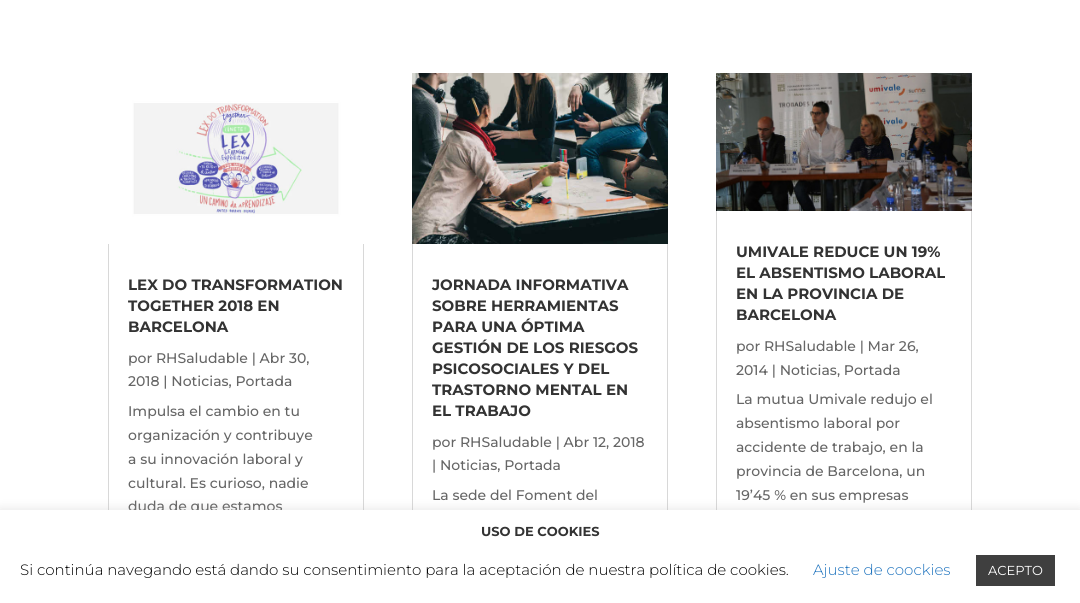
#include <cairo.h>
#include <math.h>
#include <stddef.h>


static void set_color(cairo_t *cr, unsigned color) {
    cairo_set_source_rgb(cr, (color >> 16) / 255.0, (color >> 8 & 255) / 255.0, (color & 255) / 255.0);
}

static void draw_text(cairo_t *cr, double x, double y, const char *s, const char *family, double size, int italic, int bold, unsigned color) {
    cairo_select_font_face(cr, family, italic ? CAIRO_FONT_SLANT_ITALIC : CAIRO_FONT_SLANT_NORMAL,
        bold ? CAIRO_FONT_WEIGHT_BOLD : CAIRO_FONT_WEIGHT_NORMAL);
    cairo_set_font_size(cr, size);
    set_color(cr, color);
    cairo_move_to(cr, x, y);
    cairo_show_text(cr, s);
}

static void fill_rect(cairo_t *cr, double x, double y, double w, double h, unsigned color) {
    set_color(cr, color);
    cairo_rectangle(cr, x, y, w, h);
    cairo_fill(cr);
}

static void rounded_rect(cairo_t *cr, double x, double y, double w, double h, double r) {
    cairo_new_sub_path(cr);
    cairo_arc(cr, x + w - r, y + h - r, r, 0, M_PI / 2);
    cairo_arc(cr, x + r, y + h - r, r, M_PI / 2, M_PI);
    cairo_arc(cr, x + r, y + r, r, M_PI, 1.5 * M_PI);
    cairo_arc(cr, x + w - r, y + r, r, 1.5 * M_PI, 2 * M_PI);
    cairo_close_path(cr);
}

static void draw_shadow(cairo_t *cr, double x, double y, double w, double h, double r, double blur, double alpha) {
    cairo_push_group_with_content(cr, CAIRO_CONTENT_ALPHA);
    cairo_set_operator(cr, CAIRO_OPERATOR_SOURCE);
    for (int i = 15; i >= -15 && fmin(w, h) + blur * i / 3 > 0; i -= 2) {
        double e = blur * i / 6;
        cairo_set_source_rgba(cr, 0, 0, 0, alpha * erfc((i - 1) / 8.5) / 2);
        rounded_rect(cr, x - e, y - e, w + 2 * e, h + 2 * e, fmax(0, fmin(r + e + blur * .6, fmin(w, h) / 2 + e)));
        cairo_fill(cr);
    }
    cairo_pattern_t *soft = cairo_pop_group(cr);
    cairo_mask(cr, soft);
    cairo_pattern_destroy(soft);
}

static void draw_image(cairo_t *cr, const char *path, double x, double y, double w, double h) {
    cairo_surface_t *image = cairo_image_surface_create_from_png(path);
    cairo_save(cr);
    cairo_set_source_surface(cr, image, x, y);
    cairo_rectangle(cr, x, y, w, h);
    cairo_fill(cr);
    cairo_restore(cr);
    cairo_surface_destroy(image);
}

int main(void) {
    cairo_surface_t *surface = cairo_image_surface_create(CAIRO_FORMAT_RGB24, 1080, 603);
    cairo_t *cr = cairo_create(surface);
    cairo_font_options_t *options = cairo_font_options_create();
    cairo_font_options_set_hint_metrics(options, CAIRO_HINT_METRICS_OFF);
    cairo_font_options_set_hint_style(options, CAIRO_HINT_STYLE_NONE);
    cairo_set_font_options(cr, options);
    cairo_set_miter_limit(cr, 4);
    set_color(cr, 0xFFFFFF);
    cairo_paint(cr);
    cairo_rectangle(cr, 108.5, 73.5, 255, 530);
    set_color(cr, 0xD8D8D8);
    cairo_set_line_width(cr, 1);
    cairo_stroke(cr);
    draw_image(cr, "assets/img1.png", 108, 73, 256, 171);
    draw_text(cr, 128, 290, "LEX DO TRANSFORMATION", "Montserrat Thin", 15, 0, 0, 0x333333);
    draw_text(cr, 128, 311, "TOGETHER 2018 EN", "Montserrat Thin", 15, 0, 0, 0x333333);
    draw_text(cr, 128, 332, "BARCELONA", "Montserrat Thin", 15, 0, 0, 0x333333);
    draw_text(cr, 128, 363, "por RHSaludable | Abr 30,", "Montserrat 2 Thin", 14, 0, 0, 0x666666);
    draw_text(cr, 128, 386, "2018 | Noticias, Portada", "Montserrat 2 Thin", 14, 0, 0, 0x666666);
    draw_text(cr, 128, 416, "Impulsa el cambio en tu", "Montserrat 2 Thin", 14, 0, 0, 0x666666);
    draw_text(cr, 128, 440, "organización y contribuye", "Montserrat 2 Thin", 14, 0, 0, 0x666666);
    draw_text(cr, 128, 464, "a su innovación laboral y", "Montserrat 2 Thin", 14, 0, 0, 0x666666);
    draw_text(cr, 128, 488, "cultural. Es curioso, nadie", "Montserrat 2 Thin", 14, 0, 0, 0x666666);
    draw_text(cr, 128, 511, "duda de que estamos", "Montserrat 2 Thin", 14, 0, 0, 0x666666);
    cairo_rectangle(cr, 412.5, 73.5, 255, 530);
    set_color(cr, 0xD8D8D8);
    cairo_stroke(cr);
    draw_image(cr, "assets/img2.png", 412, 73, 256, 171);
    draw_text(cr, 432, 290, "JORNADA INFORMATIVA", "Montserrat Thin", 15, 0, 0, 0x333333);
    draw_text(cr, 432, 311, "SOBRE HERRAMIENTAS", "Montserrat Thin", 15, 0, 0, 0x333333);
    draw_text(cr, 432, 332, "PARA UNA ÓPTIMA", "Montserrat Thin", 15, 0, 0, 0x333333);
    draw_text(cr, 432, 353, "GESTIÓN DE LOS RIESGOS", "Montserrat Thin", 15, 0, 0, 0x333333);
    draw_text(cr, 432, 374, "PSICOSOCIALES Y DEL", "Montserrat Thin", 15, 0, 0, 0x333333);
    draw_text(cr, 432, 395, "TRASTORNO MENTAL EN", "Montserrat Thin", 15, 0, 0, 0x333333);
    draw_text(cr, 432, 416, "EL TRABAJO", "Montserrat Thin", 15, 0, 0, 0x333333);
    draw_text(cr, 432, 447, "por RHSaludable | Abr 12, 2018", "Montserrat 2 Thin", 14, 0, 0, 0x666666);
    draw_text(cr, 432, 470, "| Noticias, Portada", "Montserrat 2 Thin", 14, 0, 0, 0x666666);
    draw_text(cr, 432, 500, "La sede del Foment del", "Montserrat 2 Thin", 14, 0, 0, 0x666666);
    cairo_rectangle(cr, 716.5, 73.5, 255, 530);
    set_color(cr, 0xD8D8D8);
    cairo_stroke(cr);
    draw_image(cr, "assets/img3.png", 716, 73, 256, 138);
    draw_text(cr, 736, 257, "UMIVALE REDUCE UN 19%", "Montserrat Thin", 15, 0, 0, 0x333333);
    draw_text(cr, 736, 278, "EL ABSENTISMO LABORAL", "Montserrat Thin", 15, 0, 0, 0x333333);
    draw_text(cr, 736, 299, "EN LA PROVINCIA DE", "Montserrat Thin", 15, 0, 0, 0x333333);
    draw_text(cr, 736, 320, "BARCELONA", "Montserrat Thin", 15, 0, 0, 0x333333);
    draw_text(cr, 736, 351, "por RHSaludable | Mar 26,", "Montserrat 2 Thin", 14, 0, 0, 0x666666);
    draw_text(cr, 736, 375, "2014 | Noticias, Portada", "Montserrat 2 Thin", 14, 0, 0, 0x666666);
    draw_text(cr, 736, 404, "La mutua Umivale redujo el", "Montserrat 2 Thin", 14, 0, 0, 0x666666);
    draw_text(cr, 736, 428, "absentismo laboral por", "Montserrat 2 Thin", 14, 0, 0, 0x666666);
    draw_text(cr, 736, 452, "accidente de trabajo, en la", "Montserrat 2 Thin", 14, 0, 0, 0x666666);
    draw_text(cr, 736, 476, "provincia de Barcelona, un", "Montserrat 2 Thin", 14, 0, 0, 0x666666);
    draw_text(cr, 736, 500, "19’45 % en sus empresas", "Montserrat 2 Thin", 14, 0, 0, 0x666666);
    set_color(cr, 0xACABAB);
    draw_shadow(cr, 0, 509, 1080, 93, 0, 5, 0.3);
    fill_rect(cr, 0, 510, 1080, 93, 0xFFFFFF);
    draw_text(cr, 481, 536, "USO DE COOKIES", "Montserrat Thin", 13, 0, 0, 0x333333);
    draw_text(cr, 20, 575, "Si continúa navegando está dando su consentimiento para la aceptación de nuestra política de cookies.", "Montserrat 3 Thin", 15, 0, 0, 0x000000);
    draw_text(cr, 813, 575, "Ajuste de coockies", "Montserrat 3 Thin", 15, 0, 0, 0x1E73BE);
    fill_rect(cr, 976, 555, 79, 31, 0x3F3F3F);
    draw_text(cr, 988, 575, "ACEPTO", "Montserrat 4 Thin", 13, 0, 0, 0xFFFFFF);
    cairo_surface_write_to_png(surface, "output.png");
    cairo_font_options_destroy(options);
    cairo_destroy(cr);
    cairo_surface_destroy(surface);
    return 0;
}
